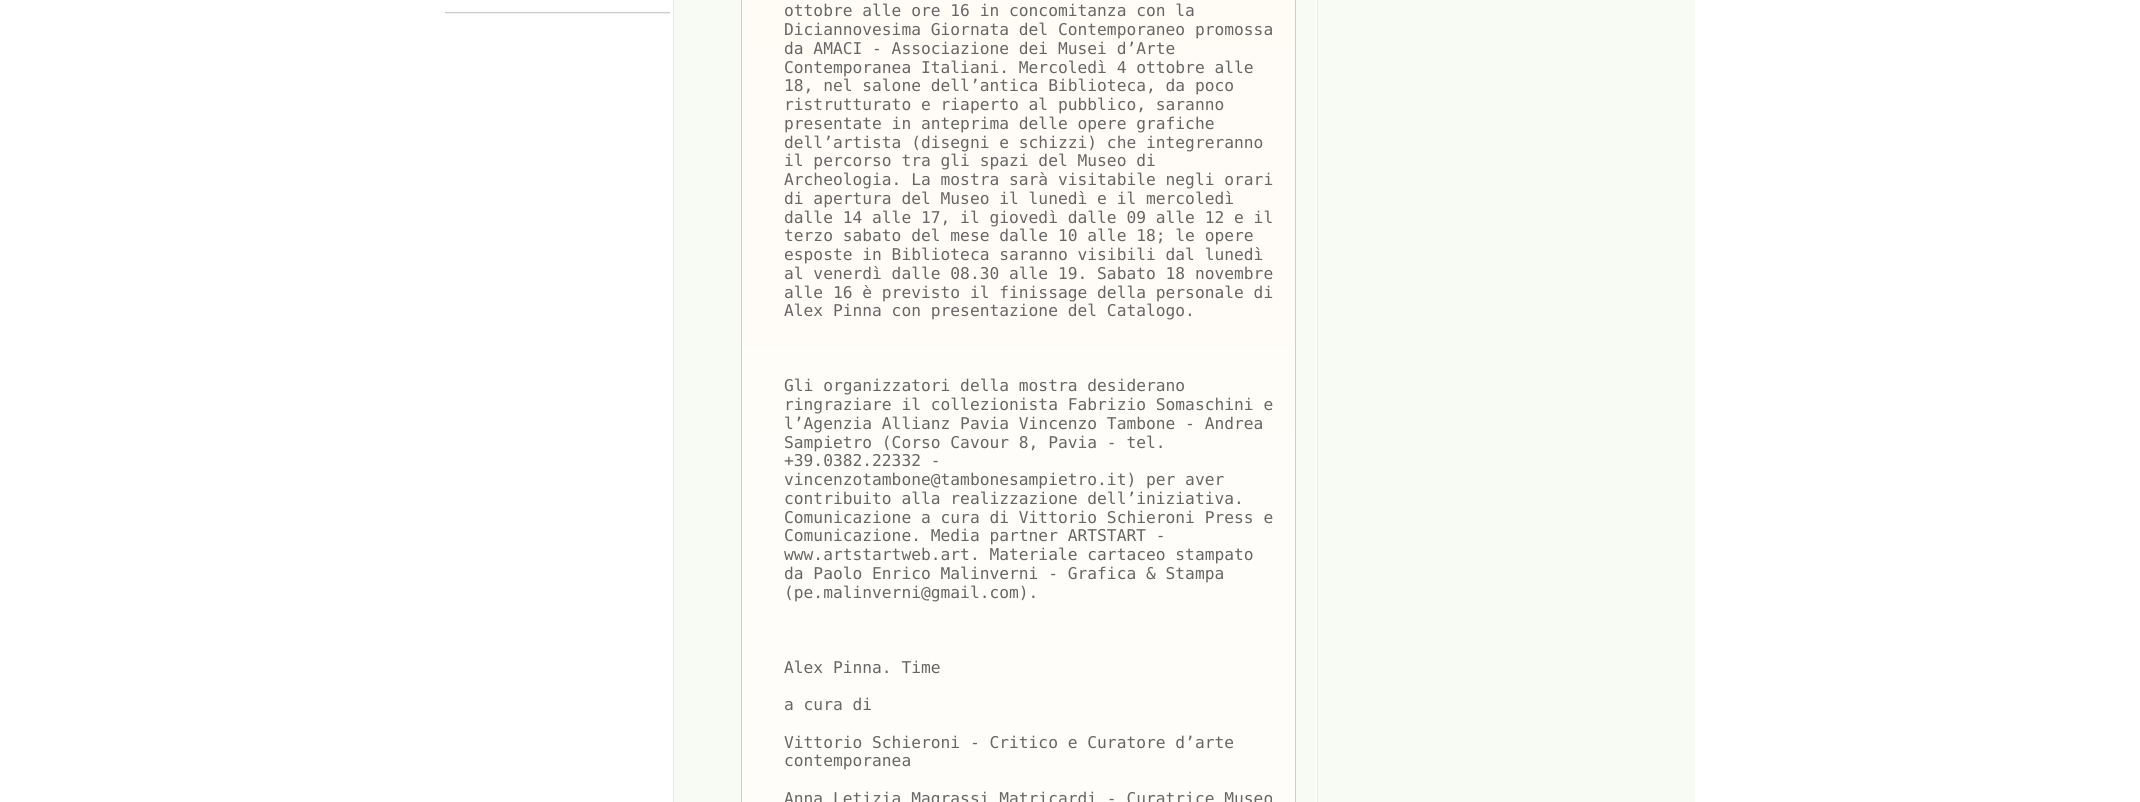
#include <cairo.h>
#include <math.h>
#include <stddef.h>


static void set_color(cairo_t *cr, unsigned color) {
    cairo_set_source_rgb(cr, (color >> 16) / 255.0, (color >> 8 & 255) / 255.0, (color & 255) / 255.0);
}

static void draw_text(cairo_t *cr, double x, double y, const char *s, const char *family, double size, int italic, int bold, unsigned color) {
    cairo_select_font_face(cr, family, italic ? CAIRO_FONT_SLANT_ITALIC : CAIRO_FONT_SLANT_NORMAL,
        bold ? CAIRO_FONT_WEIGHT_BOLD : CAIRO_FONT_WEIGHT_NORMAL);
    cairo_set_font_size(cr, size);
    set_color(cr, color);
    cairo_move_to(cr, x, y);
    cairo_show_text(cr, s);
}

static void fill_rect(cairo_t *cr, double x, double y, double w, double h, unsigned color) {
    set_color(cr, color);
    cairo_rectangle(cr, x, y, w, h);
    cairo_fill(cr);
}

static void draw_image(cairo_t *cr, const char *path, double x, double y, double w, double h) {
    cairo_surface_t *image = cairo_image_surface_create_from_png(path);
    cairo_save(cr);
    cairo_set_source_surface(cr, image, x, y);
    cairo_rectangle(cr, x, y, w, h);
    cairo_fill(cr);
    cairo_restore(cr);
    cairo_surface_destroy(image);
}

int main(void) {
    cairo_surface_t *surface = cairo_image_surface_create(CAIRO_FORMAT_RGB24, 2140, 802);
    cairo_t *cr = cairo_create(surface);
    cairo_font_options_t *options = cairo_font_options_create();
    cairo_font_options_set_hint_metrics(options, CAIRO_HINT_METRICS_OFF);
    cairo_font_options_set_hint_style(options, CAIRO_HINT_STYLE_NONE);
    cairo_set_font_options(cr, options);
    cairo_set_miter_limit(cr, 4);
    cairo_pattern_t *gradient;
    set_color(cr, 0xFFFFFF);
    cairo_paint(cr);
    fill_rect(cr, 1318, 0, 377, 802, 0xF8FAF4);
    draw_image(cr, "assets/img1.png", 445, 12, 225, 2);
    cairo_rectangle(cr, 673.5, -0.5, 644, 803);
    set_color(cr, 0xE8ECDD);
    cairo_set_line_width(cr, 1);
    cairo_stroke(cr);
    fill_rect(cr, 674, 0, 642, 802, 0xF8FAF4);
    gradient = cairo_pattern_create_linear(743, -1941, 743, 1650);
    cairo_pattern_add_color_stop_rgba(gradient, 0, 1, 0.973, 0.925, 1);
    cairo_pattern_add_color_stop_rgba(gradient, 1, 1, 1, 1, 1);
    cairo_set_source(cr, gradient);
    cairo_pattern_destroy(gradient);
    cairo_rectangle(cr, 742, 0, 553, 802);
    cairo_fill(cr);
    cairo_rectangle(cr, 741.5, -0.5, 554, 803);
    set_color(cr, 0xCCCCCC);
    cairo_stroke(cr);
    draw_text(cr, 784, 16, "ottobre alle ore 16 in concomitanza con la", "DejaVu Sans Mono", 16.25, 0, 0, 0x666666);
    draw_text(cr, 784, 35, "Diciannovesima Giornata del Contemporaneo promossa", "DejaVu Sans Mono", 16.25, 0, 0, 0x666666);
    draw_text(cr, 784, 54, "da AMACI - Associazione dei Musei d’Arte", "DejaVu Sans Mono", 16.25, 0, 0, 0x666666);
    draw_text(cr, 784, 73, "Contemporanea Italiani. Mercoledì 4 ottobre alle", "DejaVu Sans Mono", 16.25, 0, 0, 0x666666);
    draw_text(cr, 784, 91, "18, nel salone dell’antica Biblioteca, da poco", "DejaVu Sans Mono", 16.25, 0, 0, 0x666666);
    draw_text(cr, 784, 110, "ristrutturato e riaperto al pubblico, saranno", "DejaVu Sans Mono", 16.25, 0, 0, 0x666666);
    draw_text(cr, 784, 129, "presentate in anteprima delle opere grafiche", "DejaVu Sans Mono", 16.25, 0, 0, 0x666666);
    draw_text(cr, 784, 148, "dell’artista (disegni e schizzi) che integreranno", "DejaVu Sans Mono", 16.25, 0, 0, 0x666666);
    draw_text(cr, 784, 166, "il percorso tra gli spazi del Museo di", "DejaVu Sans Mono", 16.25, 0, 0, 0x666666);
    draw_text(cr, 784, 185, "Archeologia. La mostra sarà visitabile negli orari", "DejaVu Sans Mono", 16.25, 0, 0, 0x666666);
    draw_text(cr, 784, 204, "di apertura del Museo il lunedì e il mercoledì", "DejaVu Sans Mono", 16.25, 0, 0, 0x666666);
    draw_text(cr, 784, 223, "dalle 14 alle 17, il giovedì dalle 09 alle 12 e il", "DejaVu Sans Mono", 16.25, 0, 0, 0x666666);
    draw_text(cr, 784, 241, "terzo sabato del mese dalle 10 alle 18; le opere", "DejaVu Sans Mono", 16.25, 0, 0, 0x666666);
    draw_text(cr, 784, 260, "esposte in Biblioteca saranno visibili dal lunedì", "DejaVu Sans Mono", 16.25, 0, 0, 0x666666);
    draw_text(cr, 784, 279, "al venerdì dalle 08.30 alle 19. Sabato 18 novembre", "DejaVu Sans Mono", 16.25, 0, 0, 0x666666);
    draw_text(cr, 784, 298, "alle 16 è previsto il finissage della personale di", "DejaVu Sans Mono", 16.25, 0, 0, 0x666666);
    draw_text(cr, 784, 316, "Alex Pinna con presentazione del Catalogo.", "DejaVu Sans Mono", 16.25, 0, 0, 0x666666);
    draw_text(cr, 784, 391, "Gli organizzatori della mostra desiderano", "DejaVu Sans Mono", 16.25, 0, 0, 0x666666);
    draw_text(cr, 784, 410, "ringraziare il collezionista Fabrizio Somaschini e", "DejaVu Sans Mono", 16.25, 0, 0, 0x666666);
    draw_text(cr, 784, 429, "l’Agenzia Allianz Pavia Vincenzo Tambone - Andrea", "DejaVu Sans Mono", 16.25, 0, 0, 0x666666);
    draw_text(cr, 784, 448, "Sampietro (Corso Cavour 8, Pavia - tel.", "DejaVu Sans Mono", 16.25, 0, 0, 0x666666);
    draw_text(cr, 784, 466, "+39.0382.22332 -", "DejaVu Sans Mono", 16.25, 0, 0, 0x666666);
    draw_text(cr, 784, 485, "vincenzotambone@tambonesampietro.it) per aver", "DejaVu Sans Mono", 16.25, 0, 0, 0x666666);
    draw_text(cr, 784, 504, "contribuito alla realizzazione dell’iniziativa.", "DejaVu Sans Mono", 16.25, 0, 0, 0x666666);
    draw_text(cr, 784, 523, "Comunicazione a cura di Vittorio Schieroni Press e", "DejaVu Sans Mono", 16.25, 0, 0, 0x666666);
    draw_text(cr, 784, 541, "Comunicazione. Media partner ARTSTART -", "DejaVu Sans Mono", 16.25, 0, 0, 0x666666);
    draw_text(cr, 784, 560, "www.artstartweb.art. Materiale cartaceo stampato", "DejaVu Sans Mono", 16.25, 0, 0, 0x666666);
    draw_text(cr, 784, 579, "da Paolo Enrico Malinverni - Grafica & Stampa", "DejaVu Sans Mono", 16.25, 0, 0, 0x666666);
    draw_text(cr, 784, 598, "(pe.malinverni@gmail.com).", "DejaVu Sans Mono", 16.25, 0, 0, 0x666666);
    draw_text(cr, 784, 673, "Alex Pinna. Time", "DejaVu Sans Mono", 16.25, 0, 0, 0x666666);
    draw_text(cr, 784, 710, "a cura di", "DejaVu Sans Mono", 16.25, 0, 0, 0x666666);
    draw_text(cr, 784, 748, "Vittorio Schieroni - Critico e Curatore d’arte", "DejaVu Sans Mono", 16.25, 0, 0, 0x666666);
    draw_text(cr, 784, 766, "contemporanea", "DejaVu Sans Mono", 16.25, 0, 0, 0x666666);
    draw_text(cr, 784, 804, "Anna Letizia Magrassi Matricardi - Curatrice Museo", "DejaVu Sans Mono", 16.25, 0, 0, 0x666666);
    cairo_surface_write_to_png(surface, "output.png");
    cairo_font_options_destroy(options);
    cairo_destroy(cr);
    cairo_surface_destroy(surface);
    return 0;
}
